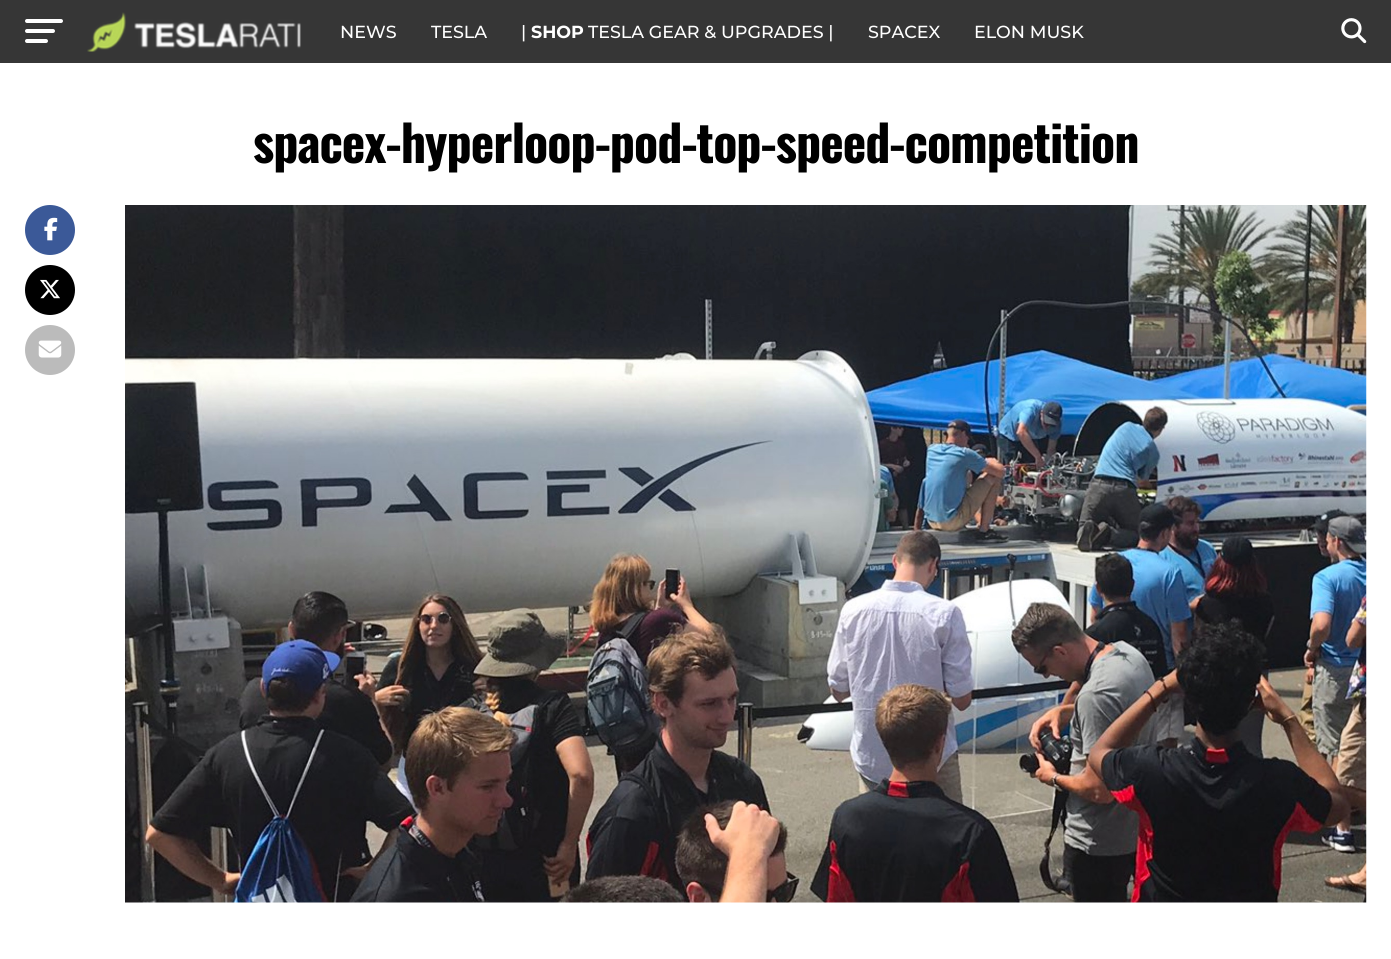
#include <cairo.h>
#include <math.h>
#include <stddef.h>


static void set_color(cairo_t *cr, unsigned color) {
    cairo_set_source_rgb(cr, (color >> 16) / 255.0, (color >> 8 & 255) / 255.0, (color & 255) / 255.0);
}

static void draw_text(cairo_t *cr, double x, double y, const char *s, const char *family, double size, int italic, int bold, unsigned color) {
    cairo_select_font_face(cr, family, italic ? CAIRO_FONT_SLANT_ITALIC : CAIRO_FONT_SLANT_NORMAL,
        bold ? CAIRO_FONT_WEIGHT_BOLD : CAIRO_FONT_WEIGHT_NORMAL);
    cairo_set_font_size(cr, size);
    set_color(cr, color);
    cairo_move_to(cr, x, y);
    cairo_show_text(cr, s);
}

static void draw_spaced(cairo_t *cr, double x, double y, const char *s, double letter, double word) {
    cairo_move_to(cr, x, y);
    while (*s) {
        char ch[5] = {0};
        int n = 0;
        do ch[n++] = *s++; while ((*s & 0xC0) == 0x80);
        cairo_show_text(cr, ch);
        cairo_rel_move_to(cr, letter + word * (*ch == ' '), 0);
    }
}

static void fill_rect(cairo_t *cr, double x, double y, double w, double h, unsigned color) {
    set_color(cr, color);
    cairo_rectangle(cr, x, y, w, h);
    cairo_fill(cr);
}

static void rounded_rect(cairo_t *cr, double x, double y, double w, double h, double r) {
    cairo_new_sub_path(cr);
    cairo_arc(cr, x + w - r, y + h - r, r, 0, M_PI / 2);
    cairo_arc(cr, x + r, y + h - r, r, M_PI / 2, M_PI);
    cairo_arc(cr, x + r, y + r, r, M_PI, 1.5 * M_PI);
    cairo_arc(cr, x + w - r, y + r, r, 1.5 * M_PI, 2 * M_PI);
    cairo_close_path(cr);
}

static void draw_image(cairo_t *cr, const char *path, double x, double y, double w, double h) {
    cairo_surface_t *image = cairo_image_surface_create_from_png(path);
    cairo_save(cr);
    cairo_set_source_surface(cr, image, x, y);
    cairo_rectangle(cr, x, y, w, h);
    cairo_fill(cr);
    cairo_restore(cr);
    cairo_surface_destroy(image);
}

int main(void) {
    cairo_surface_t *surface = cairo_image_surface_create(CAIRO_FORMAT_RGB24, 1391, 959);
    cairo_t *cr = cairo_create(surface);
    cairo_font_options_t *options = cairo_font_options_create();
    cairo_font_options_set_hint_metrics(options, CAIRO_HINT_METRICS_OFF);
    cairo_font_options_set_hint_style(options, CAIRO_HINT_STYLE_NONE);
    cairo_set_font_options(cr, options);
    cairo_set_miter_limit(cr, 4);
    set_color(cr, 0xFFFFFF);
    cairo_paint(cr);
    fill_rect(cr, 0, 0, 1391, 63, 0x363636);
    set_color(cr, 0xFFFFFF);
    rounded_rect(cr, 25, 19, 38, 4, 2);
    cairo_fill(cr);
    rounded_rect(cr, 25, 29, 30, 4, 2);
    cairo_fill(cr);
    rounded_rect(cr, 25, 39, 23, 4, 2);
    cairo_fill(cr);
    draw_image(cr, "assets/img1.png", 87, 12, 214, 40);
    draw_text(cr, 340, 38, "NEWS", "Montserrat Medium", 17.5, 0, 0, 0xFFFFFF);
    draw_text(cr, 431, 38, "TESLA", "Montserrat Medium", 17.5, 0, 0, 0xFFFFFF);
    draw_text(cr, 521, 38, "|", "Montserrat Medium", 17.5, 0, 0, 0xFFFFFF);
    draw_text(cr, 531, 38, "SHOP", "Montserrat", 17.5, 0, 1, 0xFFFFFF);
    draw_text(cr, 588, 38, "TESLA GEAR & UPGRADES |", "Montserrat Medium", 17.5, 0, 0, 0xFFFFFF);
    draw_text(cr, 868, 38, "SPACEX", "Montserrat Medium", 17.5, 0, 0, 0xFFFFFF);
    draw_text(cr, 974, 38, "ELON MUSK", "Montserrat Medium", 17.5, 0, 0, 0xFFFFFF);
    draw_image(cr, "assets/img2.png", 1341, 18, 26, 26);
    cairo_select_font_face(cr, "Oswald", CAIRO_FONT_SLANT_NORMAL, CAIRO_FONT_WEIGHT_BOLD);
    cairo_set_font_size(cr, 50);
    set_color(cr, 0x000000);
    draw_spaced(cr, 253, 163, "spacex-hyperloop-pod-top-speed-competition", -1, 0);
    set_color(cr, 0x3B5998);
    cairo_new_path(cr);
    cairo_arc(cr, 50, 230, 25, 0, 2 * M_PI);
    cairo_fill(cr);
    draw_image(cr, "assets/img3.png", 44, 217, 14, 24);
    set_color(cr, 0x000000);
    cairo_arc(cr, 50, 290, 25, 0, 2 * M_PI);
    cairo_fill(cr);
    draw_image(cr, "assets/img4.png", 40, 279, 20, 20);
    set_color(cr, 0xBBBBBB);
    cairo_arc(cr, 50, 350, 25, 0, 2 * M_PI);
    cairo_fill(cr);
    draw_image(cr, "assets/img5.png", 38, 340, 24, 18);
    draw_image(cr, "assets/img6.png", 125, 205, 1242, 698);
    cairo_surface_write_to_png(surface, "output.png");
    cairo_font_options_destroy(options);
    cairo_destroy(cr);
    cairo_surface_destroy(surface);
    return 0;
}
